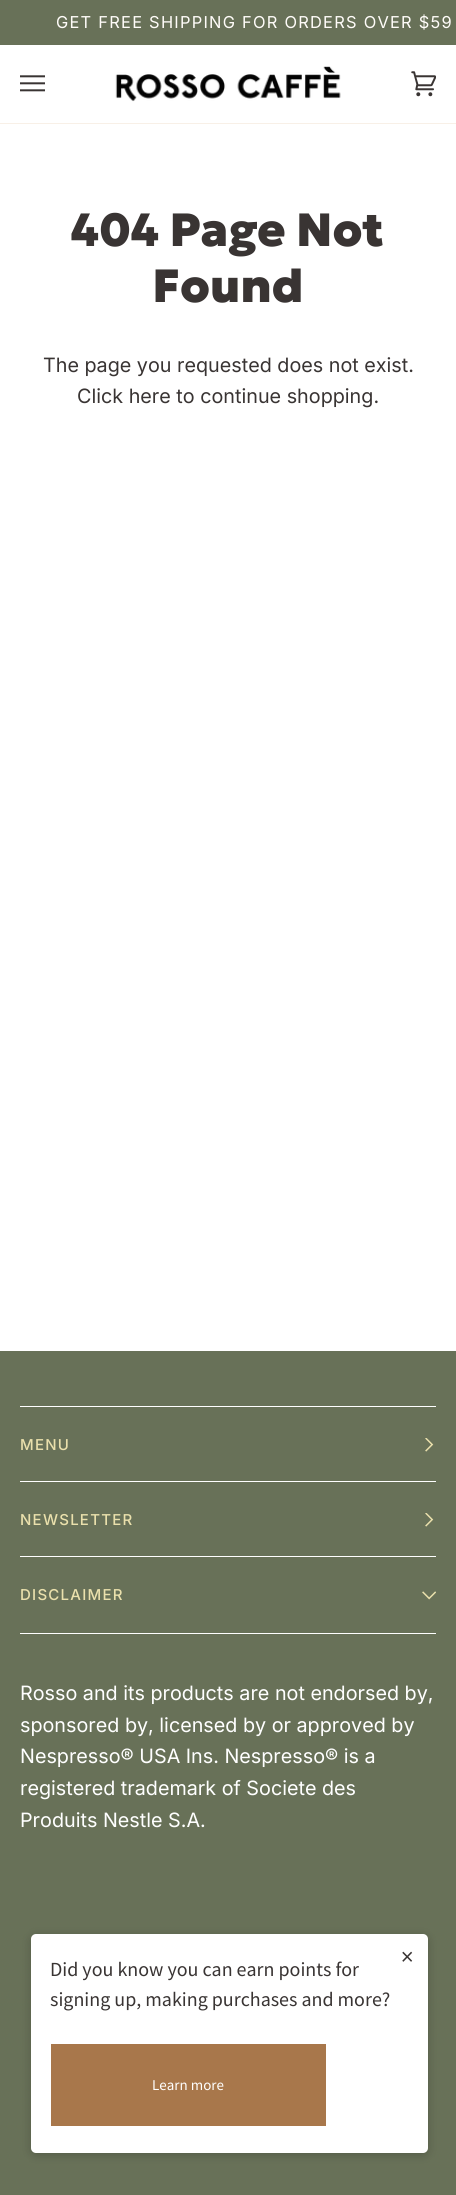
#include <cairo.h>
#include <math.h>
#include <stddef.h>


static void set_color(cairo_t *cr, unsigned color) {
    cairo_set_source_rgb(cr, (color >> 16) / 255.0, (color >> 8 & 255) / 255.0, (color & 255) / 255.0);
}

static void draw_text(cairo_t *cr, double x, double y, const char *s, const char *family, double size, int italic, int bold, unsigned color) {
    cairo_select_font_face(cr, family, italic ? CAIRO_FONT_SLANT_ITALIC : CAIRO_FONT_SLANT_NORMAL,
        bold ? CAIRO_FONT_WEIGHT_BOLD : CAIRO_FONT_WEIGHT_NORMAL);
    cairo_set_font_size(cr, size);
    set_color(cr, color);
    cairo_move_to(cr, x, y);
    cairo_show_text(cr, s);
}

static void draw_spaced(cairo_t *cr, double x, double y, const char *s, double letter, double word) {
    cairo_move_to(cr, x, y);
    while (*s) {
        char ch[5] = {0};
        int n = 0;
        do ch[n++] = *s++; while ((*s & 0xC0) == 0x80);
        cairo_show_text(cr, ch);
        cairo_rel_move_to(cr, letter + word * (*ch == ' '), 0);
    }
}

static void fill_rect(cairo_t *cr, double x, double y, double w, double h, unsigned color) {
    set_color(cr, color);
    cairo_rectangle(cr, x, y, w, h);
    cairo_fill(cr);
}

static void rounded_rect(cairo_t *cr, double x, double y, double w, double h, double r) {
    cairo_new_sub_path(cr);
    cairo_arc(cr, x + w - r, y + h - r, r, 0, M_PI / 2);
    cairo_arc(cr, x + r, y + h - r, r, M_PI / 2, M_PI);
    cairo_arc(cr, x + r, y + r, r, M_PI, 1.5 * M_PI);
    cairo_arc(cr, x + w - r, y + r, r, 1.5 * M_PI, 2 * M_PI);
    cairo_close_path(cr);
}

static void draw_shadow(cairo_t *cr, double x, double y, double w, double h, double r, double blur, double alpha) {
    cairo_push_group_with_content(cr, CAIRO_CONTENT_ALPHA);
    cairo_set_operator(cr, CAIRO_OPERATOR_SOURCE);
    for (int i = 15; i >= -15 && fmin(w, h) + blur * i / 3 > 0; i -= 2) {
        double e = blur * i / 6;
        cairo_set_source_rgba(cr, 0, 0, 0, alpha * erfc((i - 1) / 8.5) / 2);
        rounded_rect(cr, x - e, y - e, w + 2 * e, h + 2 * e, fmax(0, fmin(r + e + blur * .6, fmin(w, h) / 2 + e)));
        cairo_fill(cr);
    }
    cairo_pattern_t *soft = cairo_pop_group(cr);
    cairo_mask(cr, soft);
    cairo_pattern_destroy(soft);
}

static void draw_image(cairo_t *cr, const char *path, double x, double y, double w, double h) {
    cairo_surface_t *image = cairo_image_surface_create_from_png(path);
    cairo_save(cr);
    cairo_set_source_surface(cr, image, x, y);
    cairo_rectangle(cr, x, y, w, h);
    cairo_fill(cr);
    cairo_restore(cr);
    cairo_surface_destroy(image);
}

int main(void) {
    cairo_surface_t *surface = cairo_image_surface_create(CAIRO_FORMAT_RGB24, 456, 2195);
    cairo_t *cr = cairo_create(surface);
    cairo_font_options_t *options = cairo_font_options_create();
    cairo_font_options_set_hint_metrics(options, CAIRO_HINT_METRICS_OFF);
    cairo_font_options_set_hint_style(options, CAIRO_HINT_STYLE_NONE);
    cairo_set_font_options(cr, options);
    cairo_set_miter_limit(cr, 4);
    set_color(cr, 0xFFFFFF);
    cairo_paint(cr);
    fill_rect(cr, 0, 0, 456, 45, 0x687158);
    cairo_select_font_face(cr, "Inter", CAIRO_FONT_SLANT_NORMAL, CAIRO_FONT_WEIGHT_NORMAL);
    cairo_set_font_size(cr, 16.4);
    set_color(cr, 0xFFFCF9);
    draw_spaced(cr, 56, 28, "GET FREE SHIPPING FOR ORDERS OVER $59", 1.25, 0);
    fill_rect(cr, 0, 123, 456, 1, 0xF8F0E7);
    draw_image(cr, "assets/img1.png", 20, 75, 25, 17);
    draw_image(cr, "assets/img2.png", 115, 66, 226, 36);
    draw_image(cr, "assets/img3.png", 411, 71, 25, 26);
    draw_text(cr, 71, 246, "404 Page Not", "Geologica Black", 46.5, 0, 0, 0x393433);
    draw_text(cr, 152, 302, "Found", "Geologica Black", 46.5, 0, 0, 0x393433);
    draw_text(cr, 43, 372, "The page you requested does not exist.", "Inter", 19.75, 0, 0, 0x393433);
    draw_text(cr, 77, 403, "Click here to continue shopping.", "Inter", 19.75, 0, 0, 0x393433);
    fill_rect(cr, 0, 1351, 456, 844, 0x687158);
    fill_rect(cr, 20, 1406, 416, 1, 0xFFFFFF);
    fill_rect(cr, 20, 1481, 416, 1, 0xFFFFFF);
    cairo_select_font_face(cr, "Inter Medium", CAIRO_FONT_SLANT_NORMAL, CAIRO_FONT_WEIGHT_NORMAL);
    cairo_set_font_size(cr, 15);
    set_color(cr, 0xEAE0AC);
    draw_spaced(cr, 20, 1450, "MENU", 1.25, 0);
    draw_image(cr, "assets/img4.png", 425, 1438, 9, 14);
    fill_rect(cr, 20, 1556, 416, 1, 0xFFFFFF);
    set_color(cr, 0xEAE0AC);
    draw_spaced(cr, 20, 1525, "NEWSLETTER", 1.25, 0);
    draw_image(cr, "assets/img4.png", 425, 1513, 9, 14);
    fill_rect(cr, 20, 1633, 416, 1, 0xFFFFFF);
    set_color(cr, 0xEAE0AC);
    draw_spaced(cr, 20, 1600, "DISCLAIMER", 1.25, 0);
    draw_image(cr, "assets/img5.png", 422, 1591, 14, 9);
    draw_text(cr, 20, 1700, "Rosso and its products are not endorsed by,", "Inter", 19.75, 0, 0, 0xFFFFFF);
    draw_text(cr, 20, 1732, "sponsored by, licensed by or approved by", "Inter", 19.75, 0, 0, 0xFFFFFF);
    draw_text(cr, 20, 1763, "Nespresso® USA Ins. Nespresso® is a", "Inter", 19.75, 0, 0, 0xFFFFFF);
    draw_text(cr, 20, 1795, "registered trademark of Societe des", "Inter", 19.75, 0, 0, 0xFFFFFF);
    draw_text(cr, 20, 1827, "Produits Nestle S.A.", "Inter", 19.75, 0, 0, 0xFFFFFF);
    set_color(cr, 0x000000);
    draw_shadow(cr, 31, 1936, 397, 219, 5, 5, 0.2);
    set_color(cr, 0xFFFFFF);
    rounded_rect(cr, 31, 1934, 397, 219, 5);
    cairo_fill(cr);
    draw_text(cr, 401, 1965, "×", "Source Sans Pro", 25, 0, 0, 0x393433);
    draw_text(cr, 50, 1976, "Did you know you can earn points for", "Source Sans Pro", 20, 0, 0, 0x393433);
    draw_text(cr, 50, 2006, "signing up, making purchases and more?", "Source Sans Pro", 20, 0, 0, 0x393433);
    fill_rect(cr, 51, 2044, 275, 82, 0xA8774B);
    draw_text(cr, 152, 2090, "Learn more", "Source Sans Pro", 15, 0, 0, 0xFFFFFF);
    cairo_surface_write_to_png(surface, "output.png");
    cairo_font_options_destroy(options);
    cairo_destroy(cr);
    cairo_surface_destroy(surface);
    return 0;
}
